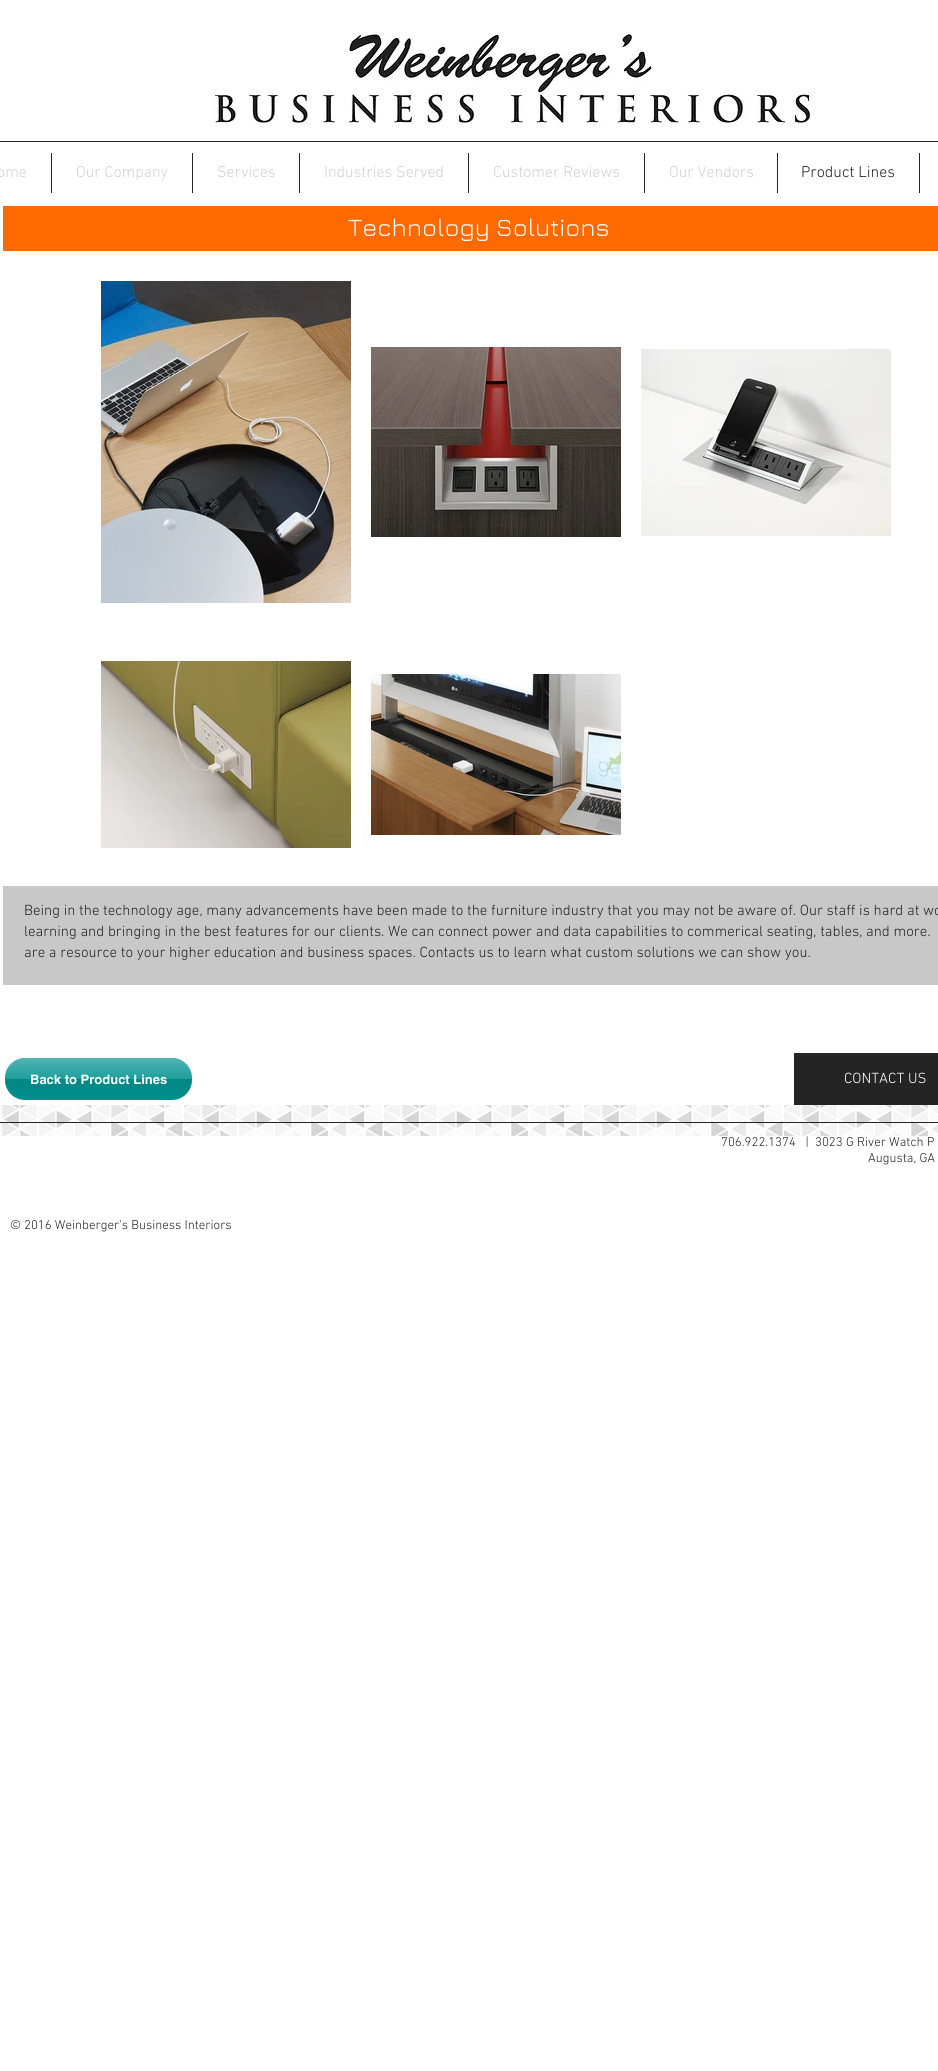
#include <cairo.h>
#include <math.h>
#include <stddef.h>


static void set_color(cairo_t *cr, unsigned color) {
    cairo_set_source_rgb(cr, (color >> 16) / 255.0, (color >> 8 & 255) / 255.0, (color & 255) / 255.0);
}

static void draw_text(cairo_t *cr, double x, double y, const char *s, const char *family, double size, int italic, int bold, unsigned color) {
    cairo_select_font_face(cr, family, italic ? CAIRO_FONT_SLANT_ITALIC : CAIRO_FONT_SLANT_NORMAL,
        bold ? CAIRO_FONT_WEIGHT_BOLD : CAIRO_FONT_WEIGHT_NORMAL);
    cairo_set_font_size(cr, size);
    set_color(cr, color);
    cairo_move_to(cr, x, y);
    cairo_show_text(cr, s);
}

static void fill_rect(cairo_t *cr, double x, double y, double w, double h, unsigned color) {
    set_color(cr, color);
    cairo_rectangle(cr, x, y, w, h);
    cairo_fill(cr);
}

static void rounded_rect(cairo_t *cr, double x, double y, double w, double h, double r) {
    cairo_new_sub_path(cr);
    cairo_arc(cr, x + w - r, y + h - r, r, 0, M_PI / 2);
    cairo_arc(cr, x + r, y + h - r, r, M_PI / 2, M_PI);
    cairo_arc(cr, x + r, y + r, r, M_PI, 1.5 * M_PI);
    cairo_arc(cr, x + w - r, y + r, r, 1.5 * M_PI, 2 * M_PI);
    cairo_close_path(cr);
}

static void draw_image(cairo_t *cr, const char *path, double x, double y, double w, double h) {
    cairo_surface_t *image = cairo_image_surface_create_from_png(path);
    cairo_save(cr);
    cairo_set_source_surface(cr, image, x, y);
    cairo_rectangle(cr, x, y, w, h);
    cairo_fill(cr);
    cairo_restore(cr);
    cairo_surface_destroy(image);
}

int main(void) {
    cairo_surface_t *surface = cairo_image_surface_create(CAIRO_FORMAT_RGB24, 938, 2071);
    cairo_t *cr = cairo_create(surface);
    cairo_font_options_t *options = cairo_font_options_create();
    cairo_font_options_set_hint_metrics(options, CAIRO_HINT_METRICS_OFF);
    cairo_font_options_set_hint_style(options, CAIRO_HINT_STYLE_NONE);
    cairo_set_font_options(cr, options);
    cairo_set_miter_limit(cr, 4);
    set_color(cr, 0xFFFFFF);
    cairo_paint(cr);
    draw_image(cr, "assets/img1.png", 213, 32, 600, 91);
    fill_rect(cr, 0, 141, 938, 1, 0x242424);
    draw_text(cr, -3, 177, "ome", "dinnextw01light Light", 16, 0, 0, 0xD1D1D1);
    fill_rect(cr, 51, 153, 1, 40, 0x242424);
    draw_text(cr, 76, 177, "Our Company", "dinnextw01light Light", 16, 0, 0, 0xD1D1D1);
    fill_rect(cr, 192, 153, 1, 40, 0x242424);
    draw_text(cr, 217, 177, "Services", "dinnextw01light Light", 16, 0, 0, 0xD1D1D1);
    fill_rect(cr, 299, 153, 1, 40, 0x242424);
    draw_text(cr, 324, 177, "Industries Served", "dinnextw01light Light", 16, 0, 0, 0xD1D1D1);
    fill_rect(cr, 468, 153, 1, 40, 0x242424);
    draw_text(cr, 493, 177, "Customer Reviews", "dinnextw01light Light", 16, 0, 0, 0xD1D1D1);
    fill_rect(cr, 644, 153, 1, 40, 0x242424);
    draw_text(cr, 669, 177, "Our Vendors", "dinnextw01light Light", 16, 0, 0, 0xD1D1D1);
    fill_rect(cr, 777, 153, 1, 40, 0x242424);
    draw_text(cr, 801, 177, "Product Lines", "dinnextw01light Light", 16, 0, 0, 0x242424);
    fill_rect(cr, 919, 153, 1, 40, 0x242424);
    fill_rect(cr, 3, 206, 935, 45, 0xFF6A00);
    draw_text(cr, 348, 236, "Technology Solutions", "Jura", 25, 0, 0, 0xFFFFFF);
    draw_image(cr, "assets/img2.png", 101, 281, 250, 322);
    draw_image(cr, "assets/img3.png", 371, 347, 250, 190);
    draw_image(cr, "assets/img4.png", 641, 349, 250, 187);
    draw_image(cr, "assets/img5.png", 101, 661, 250, 187);
    draw_image(cr, "assets/img6.png", 371, 674, 250, 161);
    fill_rect(cr, 3, 886, 935, 99, 0xC8C8C8);
    draw_text(cr, 24, 915, "Being in the technology age, many advancements have been made to the furniture industry that you may not be aware of. Our staff is hard at wo", "dinnextw01light Light", 15, 0, 0, 0x242424);
    draw_text(cr, 24, 936, "learning and bringing in the best features for our clients. We can connect power and data capabilities to commerical seating, tables, and more.", "dinnextw01light Light", 15, 0, 0, 0x242424);
    draw_text(cr, 24, 957, "are a resource to your higher education and business spaces. Contacts us to learn what custom solutions we can show you.", "dinnextw01light Light", 15, 0, 0, 0x242424);
    fill_rect(cr, 794, 1053, 144, 52, 0x242424);
    set_color(cr, 0x00928F);
    rounded_rect(cr, 5, 1058, 187, 42, 20);
    cairo_fill(cr);
    draw_image(cr, "assets/img7.png", 5, 1058, 187, 41);
    draw_text(cr, 30, 1084, "Back to Product Lines", "helvetica", 13, 0, 1, 0xFFFFFF);
    draw_text(cr, 844, 1083, "CONTACT US", "dinnextw01light Light", 15, 0, 0, 0xFFFFFF);
    draw_image(cr, "assets/img8.png", 0, 1105, 938, 31);
    fill_rect(cr, 0, 1122, 938, 1, 0x242424);
    draw_text(cr, 721, 1146, "706.922.1374   |  3023 G River Watch P", "dinnextw01light Light", 13, 0, 0, 0x242424);
    draw_text(cr, 868, 1162, "Augusta, GA", "dinnextw01light Light", 13, 0, 0, 0x242424);
    draw_text(cr, 10, 1229, "© 2016 Weinberger's Business Interiors", "dinnextw01light Light", 13, 0, 0, 0x242424);
    cairo_surface_write_to_png(surface, "output.png");
    cairo_font_options_destroy(options);
    cairo_destroy(cr);
    cairo_surface_destroy(surface);
    return 0;
}
